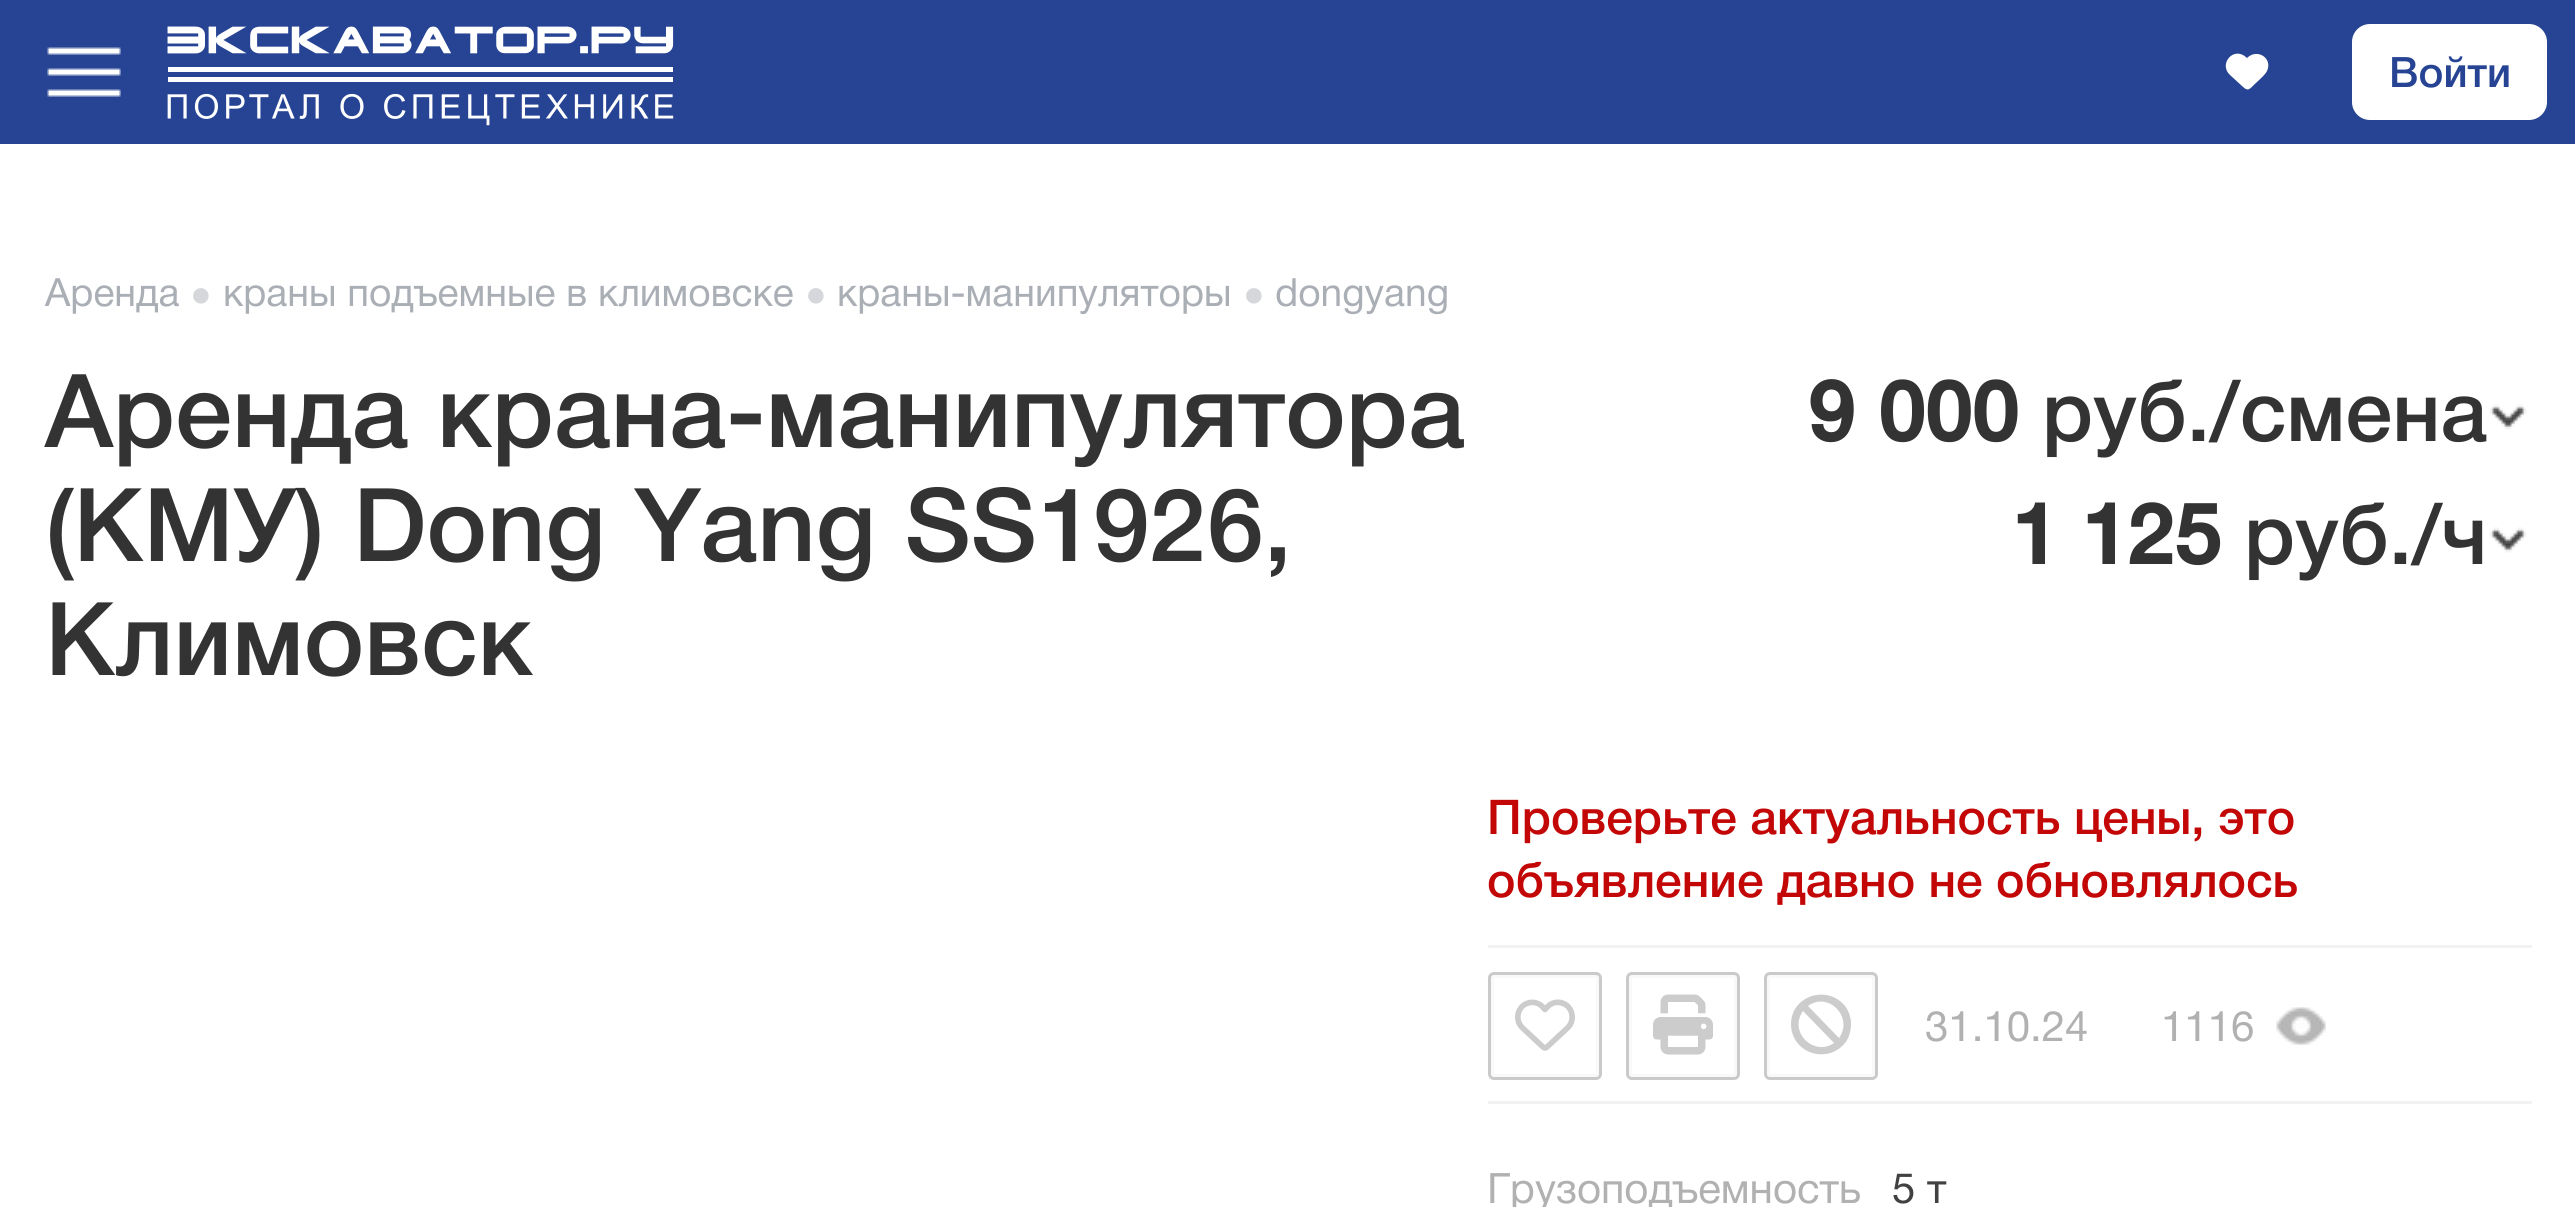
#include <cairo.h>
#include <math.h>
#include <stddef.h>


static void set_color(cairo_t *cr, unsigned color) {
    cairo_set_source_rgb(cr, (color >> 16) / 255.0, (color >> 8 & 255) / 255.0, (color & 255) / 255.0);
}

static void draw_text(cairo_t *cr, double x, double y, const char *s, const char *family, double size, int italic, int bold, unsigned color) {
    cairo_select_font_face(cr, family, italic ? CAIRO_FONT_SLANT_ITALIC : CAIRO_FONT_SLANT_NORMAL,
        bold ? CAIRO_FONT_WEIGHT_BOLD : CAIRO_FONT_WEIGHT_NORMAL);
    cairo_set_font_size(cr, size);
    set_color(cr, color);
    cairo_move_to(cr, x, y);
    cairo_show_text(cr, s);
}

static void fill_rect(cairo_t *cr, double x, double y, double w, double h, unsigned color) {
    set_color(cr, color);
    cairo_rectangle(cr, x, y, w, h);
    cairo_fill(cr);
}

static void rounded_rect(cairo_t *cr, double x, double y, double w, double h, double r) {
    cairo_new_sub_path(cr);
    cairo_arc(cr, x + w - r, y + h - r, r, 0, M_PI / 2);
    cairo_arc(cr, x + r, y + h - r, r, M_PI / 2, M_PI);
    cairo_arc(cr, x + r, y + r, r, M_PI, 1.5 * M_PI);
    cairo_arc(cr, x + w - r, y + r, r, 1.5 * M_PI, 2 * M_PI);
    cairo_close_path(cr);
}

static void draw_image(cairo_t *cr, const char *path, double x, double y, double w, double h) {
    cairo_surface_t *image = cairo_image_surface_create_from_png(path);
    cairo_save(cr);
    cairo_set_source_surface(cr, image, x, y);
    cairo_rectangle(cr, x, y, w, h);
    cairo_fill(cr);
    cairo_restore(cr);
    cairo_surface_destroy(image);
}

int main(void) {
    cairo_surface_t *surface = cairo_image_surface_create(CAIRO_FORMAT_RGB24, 2575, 1207);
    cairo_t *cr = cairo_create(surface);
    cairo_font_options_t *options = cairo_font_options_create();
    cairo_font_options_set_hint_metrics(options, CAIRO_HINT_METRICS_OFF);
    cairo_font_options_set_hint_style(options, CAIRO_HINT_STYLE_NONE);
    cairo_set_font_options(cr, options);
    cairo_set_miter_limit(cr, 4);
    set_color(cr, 0xFFFFFF);
    cairo_paint(cr);
    fill_rect(cr, 0, 0, 2575, 144, 0x264493);
    draw_image(cr, "assets/img1.png", 47, 47, 74, 50);
    draw_image(cr, "assets/img2.png", 167, 26, 507, 100);
    set_color(cr, 0xFFFFFF);
    cairo_new_path(cr);
    cairo_move_to(cr, 2230, 75);
    cairo_line_to(cr, 2245, 89);
    cairo_line_to(cr, 2230, 75);
    cairo_line_to(cr, 2242, 86);
    cairo_curve_to(cr, 2249, 93, 2250, 88, 2257, 82);
    cairo_curve_to(cr, 2260, 79, 2265, 75, 2267, 71);
    cairo_curve_to(cr, 2273, 58, 2257, 48, 2247, 58);
    cairo_curve_to(cr, 2234, 45, 2218, 64, 2230, 75);
    cairo_close_path(cr);
    cairo_fill(cr);
    rounded_rect(cr, 2353.5, 25.5, 192, 93, 16.5);
    cairo_fill_preserve(cr);
    cairo_set_line_width(cr, 3);
    cairo_stroke(cr);
    draw_text(cr, 2389, 87, "Войти", "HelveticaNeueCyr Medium", 42, 0, 0, 0x264493);
    draw_text(cr, 45, 306, "Аренда", "HelveticaNeueCyr", 39, 0, 0, 0xAAAEB5);
    draw_text(cr, 190, 306, "●", "Liberation Sans", 36, 0, 0, 0xD5D7DA);
    draw_text(cr, 223, 306, "краны подъемные в климовске", "HelveticaNeueCyr", 39, 0, 0, 0xAAAEB5);
    draw_text(cr, 805, 306, "●", "Liberation Sans", 36, 0, 0, 0xD5D7DA);
    draw_text(cr, 837, 306, "краны-манипуляторы", "HelveticaNeueCyr", 39, 0, 0, 0xAAAEB5);
    draw_text(cr, 1243, 306, "●", "Liberation Sans", 36, 0, 0, 0xD5D7DA);
    draw_text(cr, 1275, 306, "dongyang", "HelveticaNeueCyr", 39, 0, 0, 0xAAAEB5);
    draw_text(cr, 45, 447, "Аренда крана-манипулятора", "HelveticaNeueCyr Medium", 102, 0, 0, 0x333333);
    draw_text(cr, 45, 561, "(КМУ) Dong Yang SS1926,", "HelveticaNeueCyr Medium", 102, 0, 0, 0x333333);
    draw_text(cr, 45, 675, "Климовск", "HelveticaNeueCyr Medium", 102, 0, 0, 0x333333);
    draw_image(cr, "assets/img3.png", 2489, 404, 38, 26);
    draw_text(cr, 1808, 441, "9 000", "HelveticaNeueCyr", 84, 0, 1, 0x333333);
    draw_text(cr, 2042, 441, "руб./смена", "HelveticaNeueCyr Medium", 84, 0, 0, 0x333333);
    draw_image(cr, "assets/img3.png", 2489, 527, 38, 26);
    draw_text(cr, 2011, 564, "1 125", "HelveticaNeueCyr", 84, 0, 1, 0x333333);
    draw_text(cr, 2244, 564, "руб./ч", "HelveticaNeueCyr Medium", 84, 0, 0, 0x333333);
    draw_text(cr, 1487, 834, "Проверьте актуальность цены, это", "HelveticaNeueCyr Medium", 48, 0, 0, 0xC30707);
    draw_text(cr, 1487, 897, "объявление давно не обновлялось", "HelveticaNeueCyr Medium", 48, 0, 0, 0xC30707);
    fill_rect(cr, 1488, 945, 1044, 3, 0xF2F2F2);
    rounded_rect(cr, 1492.5, 976.5, 105, 99, 1.5);
    set_color(cr, 0xF9F9F9);
    cairo_stroke(cr);
    rounded_rect(cr, 1489.5, 973.5, 111, 105, 4.5);
    set_color(cr, 0xCACACA);
    cairo_stroke(cr);
    draw_image(cr, "assets/img4.png", 1515, 999, 60, 52);
    rounded_rect(cr, 1630.5, 976.5, 105, 99, 1.5);
    set_color(cr, 0xF9F9F9);
    cairo_stroke(cr);
    rounded_rect(cr, 1627.5, 973.5, 111, 105, 4.5);
    set_color(cr, 0xCACACA);
    cairo_stroke(cr);
    draw_image(cr, "assets/img5.png", 1653, 994, 60, 61);
    rounded_rect(cr, 1768.5, 976.5, 105, 99, 1.5);
    set_color(cr, 0xF9F9F9);
    cairo_stroke(cr);
    rounded_rect(cr, 1765.5, 973.5, 111, 105, 4.5);
    set_color(cr, 0xCACACA);
    cairo_stroke(cr);
    set_color(cr, 0xCCCCCC);
    cairo_new_path(cr);
    cairo_move_to(cr, 1834, 1043);
    cairo_line_to(cr, 1803, 1011);
    cairo_curve_to(cr, 1788, 1032, 1814, 1057, 1834, 1043);
    cairo_close_path(cr);
    cairo_move_to(cr, 1839, 1038);
    cairo_curve_to(cr, 1854, 1017, 1828, 991, 1808, 1006);
    cairo_close_path(cr);
    cairo_move_to(cr, 1791, 1024);
    cairo_curve_to(cr, 1791, 996, 1827, 984, 1845, 1006);
    cairo_curve_to(cr, 1849, 1011, 1851, 1018, 1851, 1024);
    cairo_curve_to(cr, 1851, 1031, 1849, 1038, 1845, 1043);
    cairo_curve_to(cr, 1827, 1065, 1791, 1053, 1791, 1024);
    cairo_close_path(cr);
    cairo_fill(cr);
    draw_text(cr, 1925, 1041, "31.10.24", "HelveticaNeueCyr", 42, 0, 0, 0xB1B1B1);
    draw_image(cr, "assets/img6.png", 2276, 1007, 50, 38);
    draw_text(cr, 2161, 1041, "1116", "HelveticaNeueCyr", 42, 0, 0, 0xB1B1B1);
    fill_rect(cr, 1488, 1101, 1044, 3, 0xF2F2F2);
    draw_text(cr, 1487, 1203, "Грузоподъемность", "HelveticaNeueCyr", 42, 0, 0, 0xB1B1B1);
    draw_text(cr, 1892, 1203, "5 т", "HelveticaNeueCyr", 42, 0, 0, 0x414141);
    cairo_surface_write_to_png(surface, "output.png");
    cairo_font_options_destroy(options);
    cairo_destroy(cr);
    cairo_surface_destroy(surface);
    return 0;
}
